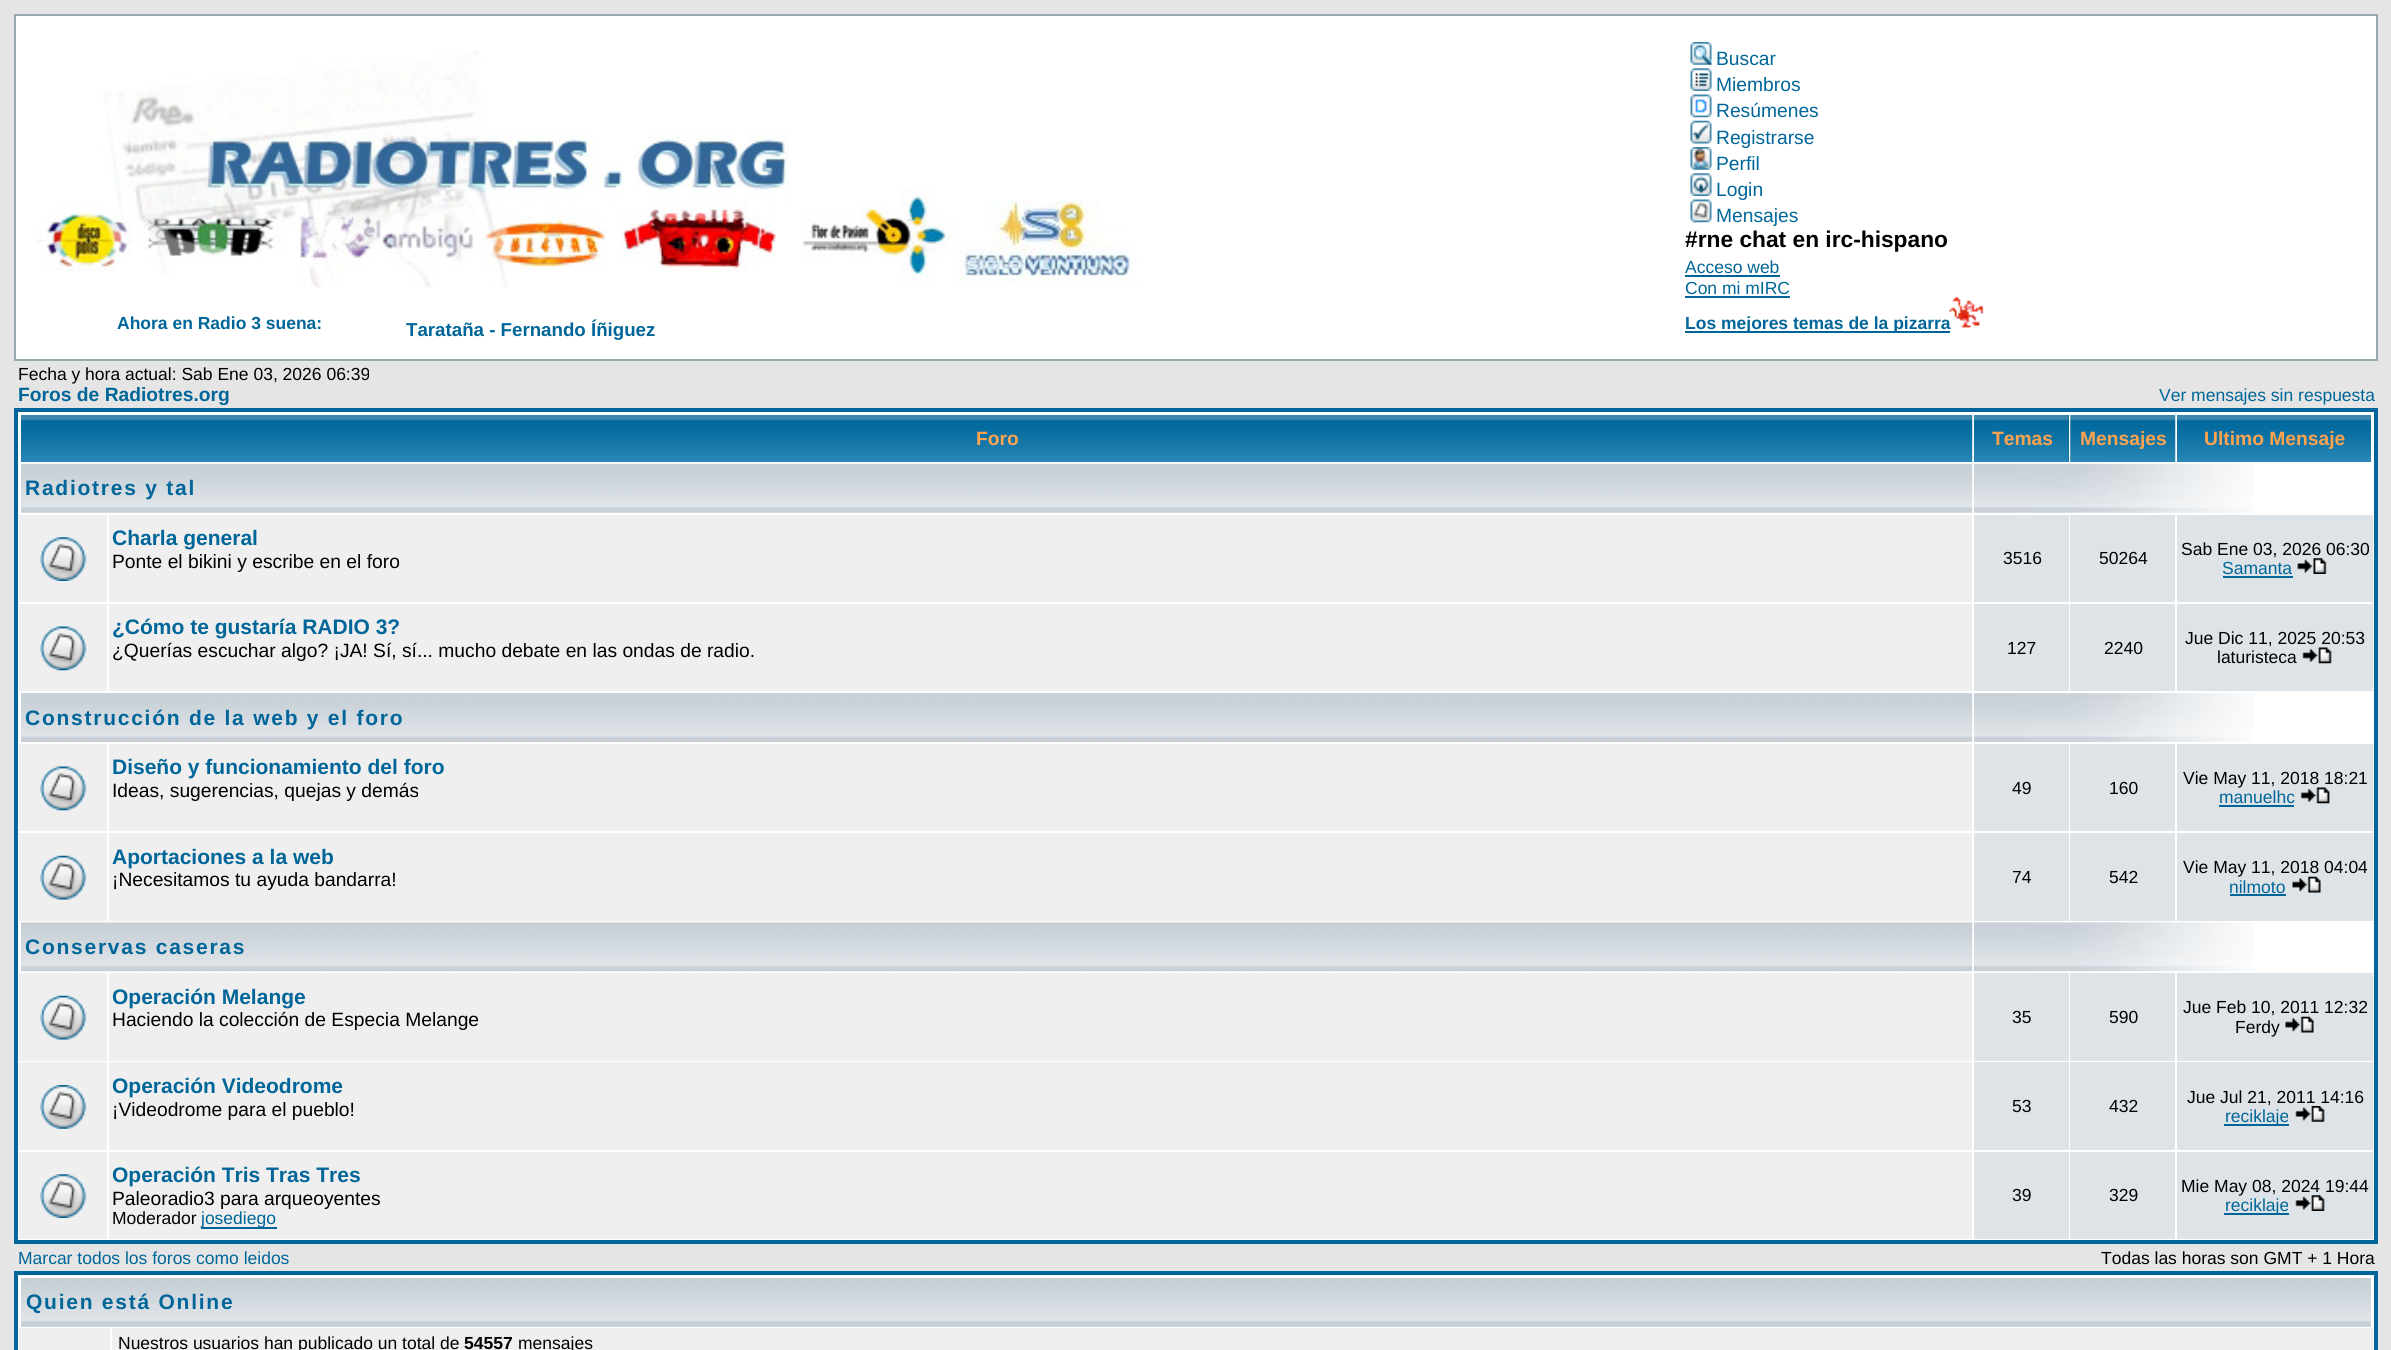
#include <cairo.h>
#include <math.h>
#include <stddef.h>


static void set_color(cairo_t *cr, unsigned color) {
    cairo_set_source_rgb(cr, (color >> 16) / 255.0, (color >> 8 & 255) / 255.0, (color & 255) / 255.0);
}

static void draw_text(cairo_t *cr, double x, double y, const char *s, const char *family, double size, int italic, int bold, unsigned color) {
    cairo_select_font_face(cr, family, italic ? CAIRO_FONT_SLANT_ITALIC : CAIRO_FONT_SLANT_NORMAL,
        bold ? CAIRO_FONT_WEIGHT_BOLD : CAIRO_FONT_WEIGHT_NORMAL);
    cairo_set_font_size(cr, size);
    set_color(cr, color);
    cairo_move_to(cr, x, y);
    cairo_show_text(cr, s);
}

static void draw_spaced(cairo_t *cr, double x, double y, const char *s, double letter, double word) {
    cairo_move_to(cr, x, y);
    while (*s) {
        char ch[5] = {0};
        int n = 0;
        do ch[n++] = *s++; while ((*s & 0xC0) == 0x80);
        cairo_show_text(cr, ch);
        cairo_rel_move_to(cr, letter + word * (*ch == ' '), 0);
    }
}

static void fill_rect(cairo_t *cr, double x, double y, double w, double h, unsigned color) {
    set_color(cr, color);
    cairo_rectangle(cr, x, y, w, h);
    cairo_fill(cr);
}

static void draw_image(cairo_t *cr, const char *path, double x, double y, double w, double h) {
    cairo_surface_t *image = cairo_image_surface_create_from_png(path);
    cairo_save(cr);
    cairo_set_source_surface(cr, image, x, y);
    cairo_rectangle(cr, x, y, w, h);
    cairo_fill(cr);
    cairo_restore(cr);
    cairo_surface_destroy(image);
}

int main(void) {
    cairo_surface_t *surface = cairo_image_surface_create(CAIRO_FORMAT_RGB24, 2391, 1350);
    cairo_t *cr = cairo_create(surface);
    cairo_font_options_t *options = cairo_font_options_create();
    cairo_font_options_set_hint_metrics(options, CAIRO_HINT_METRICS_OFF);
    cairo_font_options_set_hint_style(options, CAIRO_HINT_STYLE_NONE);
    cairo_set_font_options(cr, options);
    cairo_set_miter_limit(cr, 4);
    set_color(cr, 0xE5E5E5);
    cairo_paint(cr);
    set_color(cr, 0xFFFFFF);
    cairo_rectangle(cr, 15, 15, 2362, 345);
    cairo_fill_preserve(cr);
    set_color(cr, 0x98AAB1);
    cairo_stroke(cr);
    draw_image(cr, "assets/img1.png", 37, 50, 1100, 238);
    draw_image(cr, "assets/img2.png", 1690, 42, 22, 23);
    draw_text(cr, 1716, 65, "Buscar", "Liberation Sans", 19.25, 0, 0, 0x006699);
    draw_image(cr, "assets/img3.png", 1690, 68, 22, 23);
    draw_text(cr, 1716, 91, "Miembros", "Liberation Sans", 19.25, 0, 0, 0x006699);
    draw_image(cr, "assets/img4.png", 1690, 94, 22, 24);
    draw_text(cr, 1716, 117, "Resúmenes", "Liberation Sans", 19.25, 0, 0, 0x006699);
    draw_image(cr, "assets/img5.png", 1690, 120, 22, 24);
    draw_text(cr, 1716, 144, "Registrarse", "Liberation Sans", 19.25, 0, 0, 0x006699);
    draw_image(cr, "assets/img6.png", 1690, 147, 22, 23);
    draw_text(cr, 1716, 170, "Perfil", "Liberation Sans", 19.25, 0, 0, 0x006699);
    draw_image(cr, "assets/img7.png", 1690, 173, 22, 23);
    draw_text(cr, 1716, 196, "Login", "Liberation Sans", 19.25, 0, 0, 0x006699);
    draw_image(cr, "assets/img8.png", 1690, 199, 22, 24);
    draw_text(cr, 1716, 222, "Mensajes", "Liberation Sans", 19.25, 0, 0, 0x006699);
    draw_text(cr, 1685, 247, "#rne chat en irc-hispano", "Liberation Sans", 22.75, 0, 1, 0x000000);
    draw_text(cr, 1685, 273, "Acceso web", "Liberation Sans", 17.5, 0, 0, 0x006699);
    fill_rect(cr, 1685, 275, 95, 2, 0x006699);
    draw_text(cr, 1685, 294, "Con mi mIRC", "Liberation Sans", 17.5, 0, 0, 0x006699);
    fill_rect(cr, 1685, 296, 105, 2, 0x006699);
    draw_text(cr, 117, 329, "Ahora en Radio 3 suena:", "Liberation Sans", 17.5, 0, 1, 0x006699);
    draw_text(cr, 406, 336, "Tarataña - Fernando Íñiguez", "Liberation Sans", 18.7, 0, 1, 0x006699);
    fill_rect(cr, 1685, 331, 265, 2, 0x006699);
    draw_text(cr, 1685, 329, "Los mejores temas de la pizarra", "Liberation Sans", 17.5, 0, 1, 0x006699);
    draw_image(cr, "assets/img9.png", 1949, 297, 35, 31);
    draw_text(cr, 18, 380, "Fecha y hora actual: Sab Ene 03, 2026 06:39", "Liberation Sans", 17.5, 0, 0, 0x000000);
    draw_text(cr, 18, 401, "Foros de Radiotres.org", "Liberation Sans", 19.25, 0, 1, 0x006699);
    draw_text(cr, 2159, 401, "Ver mensajes sin respuesta", "Liberation Sans", 17.5, 0, 0, 0x006699);
    set_color(cr, 0xFFFFFF);
    cairo_rectangle(cr, 16, 410, 2360, 832);
    cairo_fill_preserve(cr);
    set_color(cr, 0x006699);
    cairo_set_line_width(cr, 4);
    cairo_stroke(cr);
    draw_image(cr, "assets/img10.png", 21, 413, 1952, 49);
    fill_rect(cr, 19, 413, 1953, 2, 0xFFFFFF);
    draw_text(cr, 976, 445, "Foro", "Liberation Sans", 19.25, 0, 1, 0xFFA34F);
    fill_rect(cr, 2068, 415, 1, 47, 0x006699);
    draw_image(cr, "assets/img11.png", 1974, 415, 95, 47);
    draw_text(cr, 1992, 445, "Temas", "Liberation Sans", 19.25, 0, 1, 0xFFA34F);
    draw_image(cr, "assets/img12.png", 2070, 413, 106, 49);
    fill_rect(cr, 2070, 413, 105, 2, 0xFFFFFF);
    draw_text(cr, 2080, 445, "Mensajes", "Liberation Sans", 19.25, 0, 1, 0xFFA34F);
    draw_image(cr, "assets/img13.png", 2177, 415, 194, 47);
    draw_text(cr, 2204, 445, "Ultimo Mensaje", "Liberation Sans", 19.25, 0, 1, 0xFFA34F);
    draw_image(cr, "assets/img14.png", 19, 463, 1954, 50);
    fill_rect(cr, 19, 464, 2, 49, 0xFFFFFF);
    cairo_set_font_size(cr, 21);
    set_color(cr, 0x006699);
    draw_spaced(cr, 25, 495, "Radiotres y tal", 1.75, 0);
    draw_image(cr, "assets/img15.png", 1974, 463, 280, 50);
    fill_rect(cr, 19, 515, 88, 87, 0xEFEFEF);
    draw_image(cr, "assets/img16.png", 39, 537, 48, 44);
    fill_rect(cr, 109, 515, 1863, 87, 0xEFEFEF);
    draw_text(cr, 112, 545, "Charla general", "Liberation Sans", 21, 0, 1, 0x006699);
    draw_text(cr, 112, 568, "Ponte el bikini y escribe en el foro", "Liberation Sans", 19.25, 0, 0, 0x000000);
    fill_rect(cr, 1974, 515, 95, 87, 0xDEE3E7);
    draw_text(cr, 2003, 564, "3516", "Liberation Sans", 17.5, 0, 0, 0x000000);
    fill_rect(cr, 2070, 515, 105, 87, 0xDEE3E7);
    draw_text(cr, 2099, 564, "50264", "Liberation Sans", 17.5, 0, 0, 0x000000);
    fill_rect(cr, 2177, 515, 196, 87, 0xDEE3E7);
    draw_text(cr, 2181, 555, "Sab Ene 03, 2026 06:30", "Liberation Sans", 17.5, 0, 0, 0x000000);
    draw_text(cr, 2222, 574, "Samanta", "Liberation Sans", 17.5, 0, 0, 0x006699);
    fill_rect(cr, 2223, 576, 70, 2, 0x006699);
    draw_image(cr, "assets/img17.png", 2297, 558, 30, 16);
    fill_rect(cr, 19, 604, 88, 87, 0xEFEFEF);
    draw_image(cr, "assets/img18.png", 39, 626, 48, 45);
    fill_rect(cr, 109, 604, 1863, 87, 0xEFEFEF);
    draw_text(cr, 112, 634, "¿Cómo te gustaría RADIO 3?", "Liberation Sans", 21, 0, 1, 0x006699);
    draw_text(cr, 112, 657, "¿Querías escuchar algo? ¡JA! Sí, sí... mucho debate en las ondas de radio.", "Liberation Sans", 19.25, 0, 0, 0x000000);
    fill_rect(cr, 1974, 604, 95, 87, 0xDEE3E7);
    draw_text(cr, 2007, 654, "127", "Liberation Sans", 17.5, 0, 0, 0x000000);
    fill_rect(cr, 2070, 604, 105, 87, 0xDEE3E7);
    draw_text(cr, 2104, 654, "2240", "Liberation Sans", 17.5, 0, 0, 0x000000);
    fill_rect(cr, 2177, 604, 196, 87, 0xDEE3E7);
    draw_text(cr, 2185, 644, "Jue Dic 11, 2025 20:53", "Liberation Sans", 17.5, 0, 0, 0x000000);
    draw_text(cr, 2217, 663, "laturisteca", "Liberation Sans", 17.5, 0, 0, 0x000000);
    draw_image(cr, "assets/img19.png", 2302, 647, 30, 17);
    draw_image(cr, "assets/img20.png", 21, 693, 1952, 49);
    cairo_select_font_face(cr, "Liberation Sans", CAIRO_FONT_SLANT_NORMAL, CAIRO_FONT_WEIGHT_BOLD);
    cairo_set_font_size(cr, 21);
    set_color(cr, 0x006699);
    draw_spaced(cr, 25, 725, "Construcción de la web y el foro", 1.75, 0);
    draw_image(cr, "assets/img21.png", 1974, 693, 280, 49);
    fill_rect(cr, 19, 744, 88, 87, 0xEFEFEF);
    draw_image(cr, "assets/img18.png", 39, 766, 48, 45);
    fill_rect(cr, 109, 744, 1863, 87, 0xEFEFEF);
    draw_text(cr, 112, 774, "Diseño y funcionamiento del foro", "Liberation Sans", 21, 0, 1, 0x006699);
    draw_text(cr, 112, 797, "Ideas, sugerencias, quejas y demás", "Liberation Sans", 19.25, 0, 0, 0x000000);
    fill_rect(cr, 1974, 744, 95, 87, 0xDEE3E7);
    draw_text(cr, 2012, 794, "49", "Liberation Sans", 17.5, 0, 0, 0x000000);
    fill_rect(cr, 2070, 744, 105, 87, 0xDEE3E7);
    draw_text(cr, 2109, 794, "160", "Liberation Sans", 17.5, 0, 0, 0x000000);
    fill_rect(cr, 2177, 744, 196, 87, 0xDEE3E7);
    draw_text(cr, 2183, 784, "Vie May 11, 2018 18:21", "Liberation Sans", 17.5, 0, 0, 0x000000);
    draw_text(cr, 2219, 803, "manuelhc", "Liberation Sans", 17.5, 0, 0, 0x006699);
    fill_rect(cr, 2219, 805, 75, 2, 0x006699);
    draw_image(cr, "assets/img22.png", 2300, 787, 30, 17);
    fill_rect(cr, 19, 833, 88, 88, 0xEFEFEF);
    draw_image(cr, "assets/img23.png", 39, 855, 48, 45);
    fill_rect(cr, 109, 833, 1863, 88, 0xEFEFEF);
    draw_text(cr, 112, 864, "Aportaciones a la web", "Liberation Sans", 21, 0, 1, 0x006699);
    draw_text(cr, 112, 886, "¡Necesitamos tu ayuda bandarra!", "Liberation Sans", 19.25, 0, 0, 0x000000);
    fill_rect(cr, 1974, 833, 95, 88, 0xDEE3E7);
    draw_text(cr, 2012, 883, "74", "Liberation Sans", 17.5, 0, 0, 0x000000);
    fill_rect(cr, 2070, 833, 105, 88, 0xDEE3E7);
    draw_text(cr, 2109, 883, "542", "Liberation Sans", 17.5, 0, 0, 0x000000);
    fill_rect(cr, 2177, 833, 196, 88, 0xDEE3E7);
    draw_text(cr, 2183, 873, "Vie May 11, 2018 04:04", "Liberation Sans", 17.5, 0, 0, 0x000000);
    draw_text(cr, 2229, 893, "nilmoto", "Liberation Sans", 17.5, 0, 0, 0x006699);
    fill_rect(cr, 2230, 894, 56, 2, 0x006699);
    draw_image(cr, "assets/img24.png", 2292, 876, 29, 17);
    draw_image(cr, "assets/img25.png", 19, 922, 1954, 50);
    fill_rect(cr, 19, 922, 2, 49, 0xFFFFFF);
    cairo_select_font_face(cr, "Liberation Sans", CAIRO_FONT_SLANT_NORMAL, CAIRO_FONT_WEIGHT_BOLD);
    cairo_set_font_size(cr, 21);
    set_color(cr, 0x006699);
    draw_spaced(cr, 25, 954, "Conservas caseras", 1.75, 0);
    draw_image(cr, "assets/img26.png", 1974, 922, 280, 50);
    fill_rect(cr, 19, 973, 88, 88, 0xEFEFEF);
    draw_image(cr, "assets/img23.png", 39, 995, 48, 45);
    fill_rect(cr, 109, 973, 1863, 88, 0xEFEFEF);
    draw_text(cr, 112, 1004, "Operación Melange", "Liberation Sans", 21, 0, 1, 0x006699);
    draw_text(cr, 112, 1026, "Haciendo la colección de Especia Melange", "Liberation Sans", 19.25, 0, 0, 0x000000);
    fill_rect(cr, 1974, 973, 95, 88, 0xDEE3E7);
    draw_text(cr, 2012, 1023, "35", "Liberation Sans", 17.5, 0, 0, 0x000000);
    fill_rect(cr, 2070, 973, 105, 88, 0xDEE3E7);
    draw_text(cr, 2109, 1023, "590", "Liberation Sans", 17.5, 0, 0, 0x000000);
    fill_rect(cr, 2177, 973, 196, 88, 0xDEE3E7);
    draw_text(cr, 2183, 1013, "Jue Feb 10, 2011 12:32", "Liberation Sans", 17.5, 0, 0, 0x000000);
    draw_text(cr, 2235, 1033, "Ferdy", "Liberation Sans", 17.5, 0, 0, 0x000000);
    draw_image(cr, "assets/img24.png", 2285, 1016, 29, 17);
    fill_rect(cr, 19, 1062, 88, 88, 0xEFEFEF);
    draw_image(cr, "assets/img27.png", 39, 1085, 48, 44);
    fill_rect(cr, 109, 1062, 1863, 88, 0xEFEFEF);
    draw_text(cr, 112, 1093, "Operación Videodrome", "Liberation Sans", 21, 0, 1, 0x006699);
    draw_text(cr, 112, 1116, "¡Videodrome para el pueblo!", "Liberation Sans", 19.25, 0, 0, 0x000000);
    fill_rect(cr, 1974, 1062, 95, 88, 0xDEE3E7);
    draw_text(cr, 2012, 1112, "53", "Liberation Sans", 17.5, 0, 0, 0x000000);
    fill_rect(cr, 2070, 1062, 105, 88, 0xDEE3E7);
    draw_text(cr, 2109, 1112, "432", "Liberation Sans", 17.5, 0, 0, 0x000000);
    fill_rect(cr, 2177, 1062, 196, 88, 0xDEE3E7);
    draw_text(cr, 2187, 1103, "Jue Jul 21, 2011 14:16", "Liberation Sans", 17.5, 0, 0, 0x000000);
    fill_rect(cr, 2224, 1124, 65, 2, 0x006699);
    draw_text(cr, 2225, 1122, "reciklaje", "Liberation Sans", 17.5, 0, 0, 0x006699);
    draw_image(cr, "assets/img28.png", 2295, 1106, 30, 16);
    fill_rect(cr, 19, 1152, 88, 87, 0xEFEFEF);
    draw_image(cr, "assets/img16.png", 39, 1174, 48, 44);
    fill_rect(cr, 109, 1152, 1863, 87, 0xEFEFEF);
    draw_text(cr, 112, 1182, "Operación Tris Tras Tres", "Liberation Sans", 21, 0, 1, 0x006699);
    draw_text(cr, 112, 1205, "Paleoradio3 para arqueoyentes", "Liberation Sans", 19.25, 0, 0, 0x000000);
    draw_text(cr, 112, 1224, "Moderador", "Liberation Sans", 17.5, 0, 0, 0x000000);
    fill_rect(cr, 201, 1227, 76, 2, 0x006699);
    draw_text(cr, 201, 1224, "josediego", "Liberation Sans", 17.5, 0, 0, 0x006699);
    fill_rect(cr, 1974, 1152, 95, 87, 0xDEE3E7);
    draw_text(cr, 2012, 1201, "39", "Liberation Sans", 17.5, 0, 0, 0x000000);
    fill_rect(cr, 2070, 1152, 105, 87, 0xDEE3E7);
    draw_text(cr, 2109, 1201, "329", "Liberation Sans", 17.5, 0, 0, 0x000000);
    fill_rect(cr, 2177, 1152, 196, 87, 0xDEE3E7);
    draw_text(cr, 2181, 1192, "Mie May 08, 2024 19:44", "Liberation Sans", 17.5, 0, 0, 0x000000);
    fill_rect(cr, 2224, 1213, 65, 2, 0x006699);
    draw_text(cr, 2225, 1211, "reciklaje", "Liberation Sans", 17.5, 0, 0, 0x006699);
    draw_image(cr, "assets/img29.png", 2295, 1195, 30, 16);
    draw_text(cr, 18, 1264, "Marcar todos los foros como leidos", "Liberation Sans", 17.5, 0, 0, 0x006699);
    draw_text(cr, 2101, 1264, "Todas las horas son GMT + 1 Hora", "Liberation Sans", 17.5, 0, 0, 0x000000);
    set_color(cr, 0xFFFFFF);
    cairo_rectangle(cr, 16, 1273, 2360, 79);
    cairo_fill_preserve(cr);
    set_color(cr, 0x006699);
    cairo_stroke(cr);
    fill_rect(cr, 21, 1326, 2350, 1, 0xD1D7DC);
    draw_image(cr, "assets/img30.png", 19, 1275, 2354, 52);
    fill_rect(cr, 19, 1276, 2354, 2, 0xFFFFFF);
    fill_rect(cr, 2371, 1276, 2, 51, 0xFFFFFF);
    fill_rect(cr, 19, 1276, 2, 51, 0xFFFFFF);
    cairo_select_font_face(cr, "Liberation Sans", CAIRO_FONT_SLANT_NORMAL, CAIRO_FONT_WEIGHT_BOLD);
    cairo_set_font_size(cr, 21);
    set_color(cr, 0x006699);
    draw_spaced(cr, 26, 1309, "Quien está Online", 1.75, 0);
    fill_rect(cr, 19, 1328, 91, 22, 0xEFEFEF);
    fill_rect(cr, 112, 1328, 2261, 22, 0xEFEFEF);
    draw_text(cr, 118, 1349, "Nuestros usuarios han publicado un total de", "Liberation Sans", 17.5, 0, 0, 0x000000);
    draw_text(cr, 464, 1349, "54557", "Liberation Sans", 17.5, 0, 1, 0x000000);
    draw_text(cr, 518, 1349, "mensajes", "Liberation Sans", 17.5, 0, 0, 0x000000);
    cairo_surface_write_to_png(surface, "output.png");
    cairo_font_options_destroy(options);
    cairo_destroy(cr);
    cairo_surface_destroy(surface);
    return 0;
}
